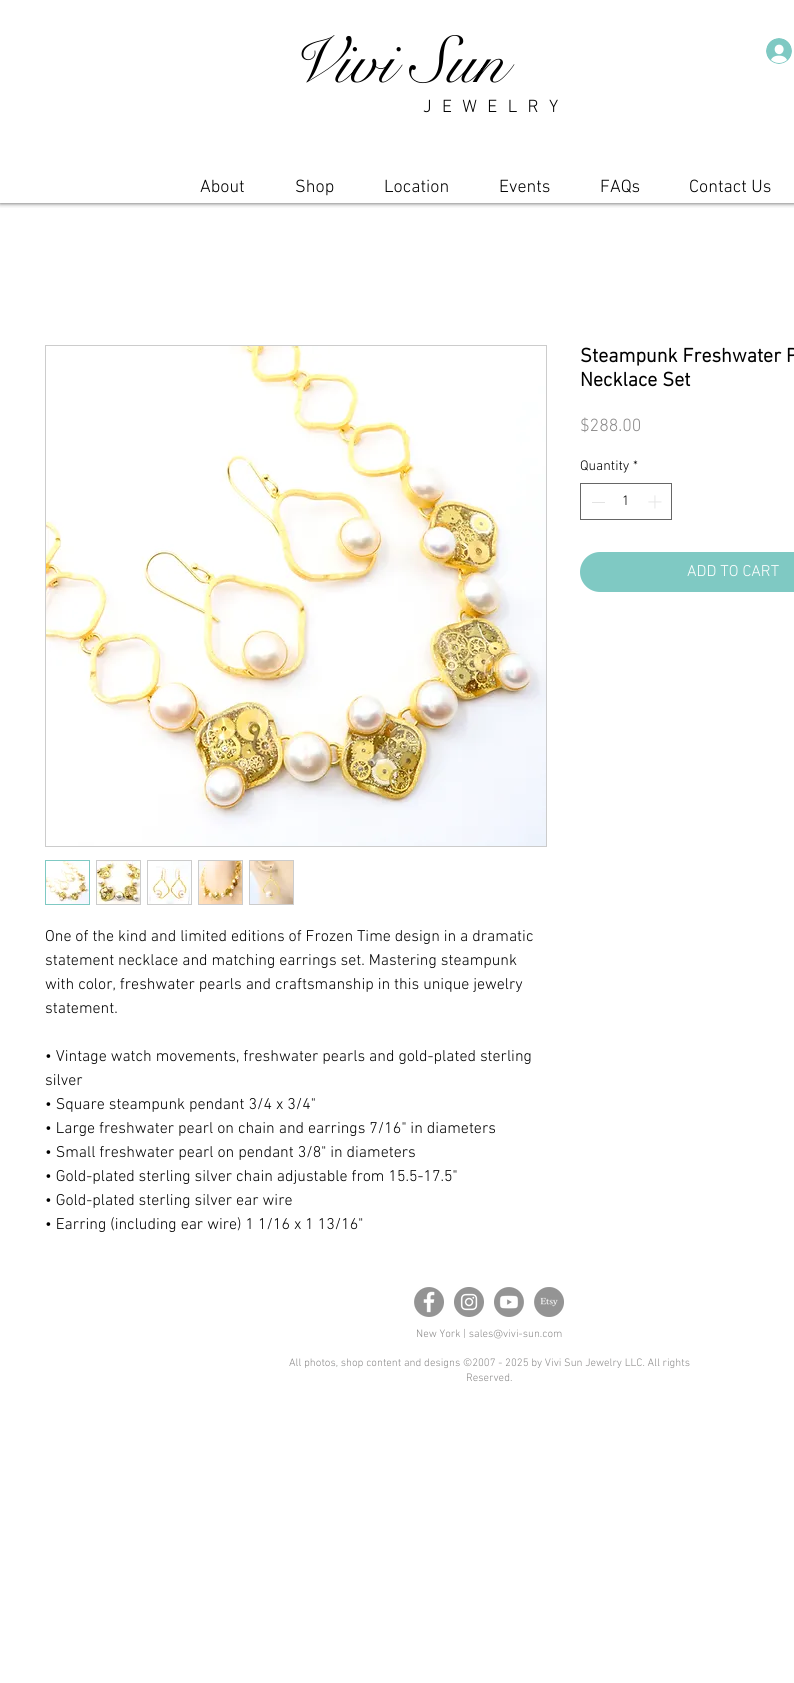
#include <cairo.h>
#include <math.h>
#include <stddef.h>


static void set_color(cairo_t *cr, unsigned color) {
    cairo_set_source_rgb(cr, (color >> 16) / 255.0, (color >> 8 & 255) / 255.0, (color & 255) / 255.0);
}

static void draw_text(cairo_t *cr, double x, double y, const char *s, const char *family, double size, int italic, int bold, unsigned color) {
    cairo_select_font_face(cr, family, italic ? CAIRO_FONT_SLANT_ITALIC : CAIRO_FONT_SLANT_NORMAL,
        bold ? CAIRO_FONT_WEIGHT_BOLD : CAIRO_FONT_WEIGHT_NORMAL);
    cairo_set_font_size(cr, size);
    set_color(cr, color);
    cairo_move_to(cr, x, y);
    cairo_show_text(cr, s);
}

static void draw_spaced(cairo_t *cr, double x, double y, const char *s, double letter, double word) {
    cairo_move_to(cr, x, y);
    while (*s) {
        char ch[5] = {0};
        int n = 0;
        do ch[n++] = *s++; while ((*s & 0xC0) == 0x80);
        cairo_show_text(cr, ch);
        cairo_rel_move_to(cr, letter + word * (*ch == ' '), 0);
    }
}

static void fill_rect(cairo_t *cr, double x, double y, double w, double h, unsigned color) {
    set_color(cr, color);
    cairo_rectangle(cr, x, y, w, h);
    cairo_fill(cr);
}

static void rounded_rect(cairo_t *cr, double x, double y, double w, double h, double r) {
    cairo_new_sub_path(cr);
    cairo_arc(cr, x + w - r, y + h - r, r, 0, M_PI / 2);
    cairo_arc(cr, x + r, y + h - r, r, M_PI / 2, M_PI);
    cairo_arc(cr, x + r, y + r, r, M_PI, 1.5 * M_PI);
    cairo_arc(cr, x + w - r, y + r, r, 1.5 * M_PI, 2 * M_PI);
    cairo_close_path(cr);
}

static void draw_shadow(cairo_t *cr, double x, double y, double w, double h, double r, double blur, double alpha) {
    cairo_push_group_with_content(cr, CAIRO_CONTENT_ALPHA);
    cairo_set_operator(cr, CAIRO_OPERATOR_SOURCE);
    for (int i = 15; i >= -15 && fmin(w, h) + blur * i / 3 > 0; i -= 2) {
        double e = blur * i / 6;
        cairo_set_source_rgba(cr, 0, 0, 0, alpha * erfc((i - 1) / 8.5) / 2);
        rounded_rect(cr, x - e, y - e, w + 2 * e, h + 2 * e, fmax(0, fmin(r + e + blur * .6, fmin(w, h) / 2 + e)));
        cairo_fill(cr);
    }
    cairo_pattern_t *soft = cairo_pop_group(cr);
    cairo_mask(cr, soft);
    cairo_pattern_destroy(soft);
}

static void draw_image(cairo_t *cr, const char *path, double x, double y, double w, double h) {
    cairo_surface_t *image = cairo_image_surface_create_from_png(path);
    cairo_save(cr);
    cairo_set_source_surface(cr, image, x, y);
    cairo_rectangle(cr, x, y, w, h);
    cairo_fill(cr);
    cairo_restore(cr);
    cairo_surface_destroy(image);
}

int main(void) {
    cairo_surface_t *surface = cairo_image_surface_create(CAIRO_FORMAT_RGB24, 794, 1683);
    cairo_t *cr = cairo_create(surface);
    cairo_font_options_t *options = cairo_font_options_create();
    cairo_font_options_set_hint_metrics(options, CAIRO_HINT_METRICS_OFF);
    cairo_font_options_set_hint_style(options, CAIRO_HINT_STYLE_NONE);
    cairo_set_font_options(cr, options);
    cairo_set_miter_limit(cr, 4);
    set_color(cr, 0xFFFFFF);
    cairo_paint(cr);
    cairo_save(cr);
    cairo_rectangle(cr, 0, 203, 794, 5);
    cairo_clip(cr);
    set_color(cr, 0x000000);
    draw_shadow(cr, 0, 0, 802, 203, 0, 2.5, 0.7);
    cairo_restore(cr);
    draw_text(cr, 288, 82, "Vivi Sun", "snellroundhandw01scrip", 66, 0, 0, 0x000000);
    draw_image(cr, "assets/img1.png", 766, 38, 26, 26);
    cairo_select_font_face(cr, "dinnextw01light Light", CAIRO_FONT_SLANT_NORMAL, CAIRO_FONT_WEIGHT_NORMAL);
    cairo_set_font_size(cr, 18);
    draw_spaced(cr, 423, 112, "J  E  W  E  L  R  Y", 0.5, 0);
    draw_text(cr, 200, 192, "About", "dinnextw01light Light", 18, 0, 0, 0x000000);
    draw_text(cr, 295, 192, "Shop", "dinnextw01light Light", 18, 0, 0, 0x000000);
    draw_text(cr, 384, 192, "Location", "dinnextw01light Light", 18, 0, 0, 0x000000);
    draw_text(cr, 499, 192, "Events", "dinnextw01light Light", 18, 0, 0, 0x000000);
    draw_text(cr, 600, 192, "FAQs", "dinnextw01light Light", 18, 0, 0, 0x000000);
    draw_text(cr, 689, 192, "Contact Us", "dinnextw01light Light", 18, 0, 0, 0x000000);
    draw_text(cr, 580, 362, "Steampunk Freshwater P", "dinnextw01light", 20, 0, 1, 0x000000);
    draw_text(cr, 580, 386, "Necklace Set", "dinnextw01light", 20, 0, 1, 0x000000);
    draw_text(cr, 580, 431, "$288.00", "dinnextw01light Light", 18, 0, 0, 0x8B8A8A);
    draw_text(cr, 580, 470, "Quantity", "dinnextw01light Light", 14, 0, 0, 0x000000);
    draw_text(cr, 633, 470, "*", "dinnextw01light Light", 14, 0, 0, 0x000000);
    cairo_rectangle(cr, 580.5, 483.5, 91, 36);
    set_color(cr, 0x666666);
    cairo_set_line_width(cr, 1);
    cairo_stroke(cr);
    fill_rect(cr, 592, 502, 13, 1, 0xE3E3E3);
    draw_text(cr, 622, 505, "1", "dinnextw01light Light", 14, 0, 0, 0x000000);
    draw_image(cr, "assets/img2.png", 648, 495, 14, 14);
    set_color(cr, 0x7FC9C3);
    rounded_rect(cr, 580, 552, 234, 40, 20);
    cairo_fill(cr);
    draw_text(cr, 687, 576, "ADD TO CART", "dinnextw01light Light", 16, 0, 0, 0xFFFFFF);
    cairo_rectangle(cr, 45.5, 345.5, 501, 501);
    set_color(cr, 0xCCCCCC);
    cairo_stroke(cr);
    draw_image(cr, "assets/img3.png", 46, 346, 500, 500);
    cairo_rectangle(cr, 45.5, 860.5, 44, 44);
    set_color(cr, 0x7FC9C3);
    cairo_stroke(cr);
    draw_image(cr, "assets/img4.png", 46, 861, 43, 43);
    fill_rect(cr, 96, 860, 45, 45, 0xCCCCCC);
    draw_image(cr, "assets/img5.png", 97, 861, 43, 43);
    fill_rect(cr, 147, 860, 45, 45, 0xCCCCCC);
    draw_image(cr, "assets/img6.png", 148, 861, 43, 43);
    fill_rect(cr, 198, 860, 45, 45, 0xCCCCCC);
    draw_image(cr, "assets/img7.png", 199, 861, 43, 43);
    fill_rect(cr, 249, 860, 45, 45, 0xCCCCCC);
    draw_image(cr, "assets/img8.png", 250, 861, 43, 43);
    draw_text(cr, 45, 941, "One of the kind and limited editions of Frozen Time design in a dramatic", "dinnextw01light Light", 16, 0, 0, 0x000000);
    draw_text(cr, 45, 965, "statement necklace and matching earrings set. Mastering steampunk", "dinnextw01light Light", 16, 0, 0, 0x000000);
    draw_text(cr, 45, 989, "with color, freshwater pearls and craftsmanship in this unique jewelry", "dinnextw01light Light", 16, 0, 0, 0x000000);
    draw_text(cr, 45, 1013, "statement.", "dinnextw01light Light", 16, 0, 0, 0x000000);
    draw_text(cr, 45, 1061, "• Vintage watch movements, freshwater pearls and gold-plated sterling", "dinnextw01light Light", 16, 0, 0, 0x000000);
    draw_text(cr, 45, 1085, "silver", "dinnextw01light Light", 16, 0, 0, 0x000000);
    draw_text(cr, 45, 1109, "• Square steampunk pendant 3/4 x 3/4\"", "dinnextw01light Light", 16, 0, 0, 0x000000);
    draw_text(cr, 45, 1133, "• Large freshwater pearl on chain and earrings 7/16\" in diameters", "dinnextw01light Light", 16, 0, 0, 0x000000);
    draw_text(cr, 45, 1157, "• Small freshwater pearl on pendant 3/8\" in diameters", "dinnextw01light Light", 16, 0, 0, 0x000000);
    draw_text(cr, 45, 1181, "• Gold-plated sterling silver chain adjustable from 15.5-17.5\"", "dinnextw01light Light", 16, 0, 0, 0x000000);
    draw_text(cr, 45, 1205, "• Gold-plated sterling silver ear wire", "dinnextw01light Light", 16, 0, 0, 0x000000);
    draw_text(cr, 45, 1229, "• Earring (including ear wire) 1 1/16 x 1 13/16\"", "dinnextw01light Light", 16, 0, 0, 0x000000);
    draw_image(cr, "assets/img9.png", 414, 1287, 30, 30);
    draw_image(cr, "assets/img10.png", 454, 1287, 30, 30);
    draw_image(cr, "assets/img11.png", 494, 1287, 30, 30);
    draw_image(cr, "assets/img12.png", 534, 1287, 30, 30);
    draw_text(cr, 416, 1337, "New York | sales@vivi-sun.com", "dinnextw01light Light", 11, 0, 0, 0x8B8A8A);
    draw_text(cr, 289, 1366, "All photos, shop content and designs ©2007 - 2025 by Vivi Sun Jewelry LLC. All rights", "dinnextw01light Light", 11, 0, 0, 0x8B8A8A);
    draw_text(cr, 466, 1381, "Reserved.", "dinnextw01light Light", 11, 0, 0, 0x8B8A8A);
    cairo_surface_write_to_png(surface, "output.png");
    cairo_font_options_destroy(options);
    cairo_destroy(cr);
    cairo_surface_destroy(surface);
    return 0;
}
